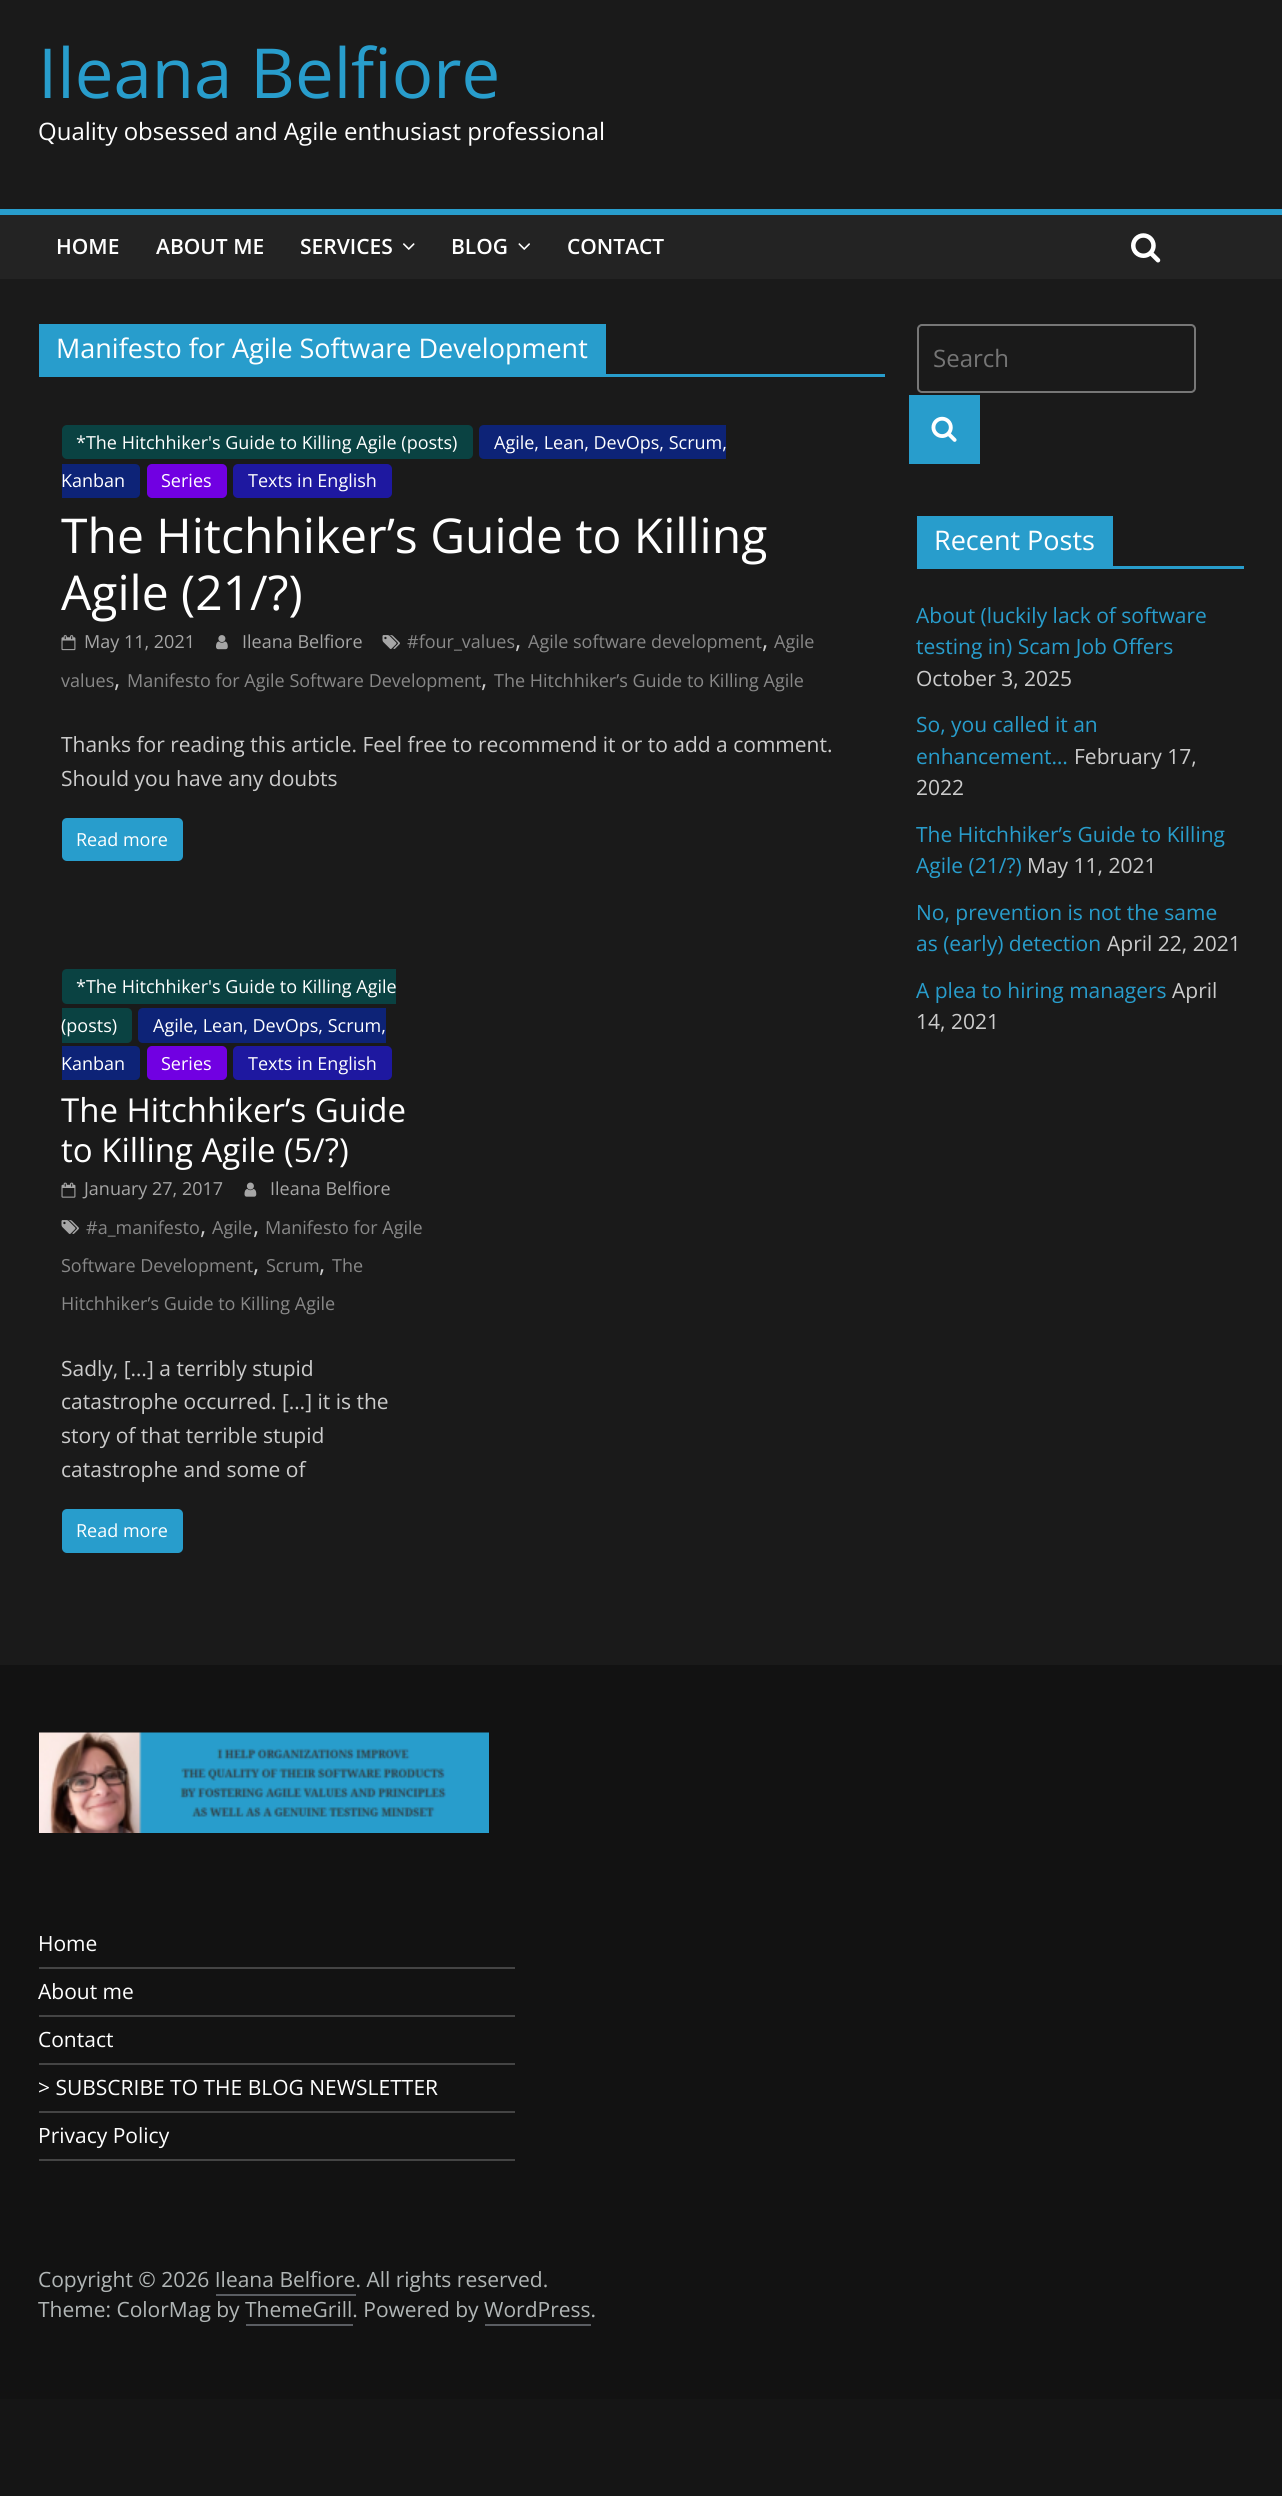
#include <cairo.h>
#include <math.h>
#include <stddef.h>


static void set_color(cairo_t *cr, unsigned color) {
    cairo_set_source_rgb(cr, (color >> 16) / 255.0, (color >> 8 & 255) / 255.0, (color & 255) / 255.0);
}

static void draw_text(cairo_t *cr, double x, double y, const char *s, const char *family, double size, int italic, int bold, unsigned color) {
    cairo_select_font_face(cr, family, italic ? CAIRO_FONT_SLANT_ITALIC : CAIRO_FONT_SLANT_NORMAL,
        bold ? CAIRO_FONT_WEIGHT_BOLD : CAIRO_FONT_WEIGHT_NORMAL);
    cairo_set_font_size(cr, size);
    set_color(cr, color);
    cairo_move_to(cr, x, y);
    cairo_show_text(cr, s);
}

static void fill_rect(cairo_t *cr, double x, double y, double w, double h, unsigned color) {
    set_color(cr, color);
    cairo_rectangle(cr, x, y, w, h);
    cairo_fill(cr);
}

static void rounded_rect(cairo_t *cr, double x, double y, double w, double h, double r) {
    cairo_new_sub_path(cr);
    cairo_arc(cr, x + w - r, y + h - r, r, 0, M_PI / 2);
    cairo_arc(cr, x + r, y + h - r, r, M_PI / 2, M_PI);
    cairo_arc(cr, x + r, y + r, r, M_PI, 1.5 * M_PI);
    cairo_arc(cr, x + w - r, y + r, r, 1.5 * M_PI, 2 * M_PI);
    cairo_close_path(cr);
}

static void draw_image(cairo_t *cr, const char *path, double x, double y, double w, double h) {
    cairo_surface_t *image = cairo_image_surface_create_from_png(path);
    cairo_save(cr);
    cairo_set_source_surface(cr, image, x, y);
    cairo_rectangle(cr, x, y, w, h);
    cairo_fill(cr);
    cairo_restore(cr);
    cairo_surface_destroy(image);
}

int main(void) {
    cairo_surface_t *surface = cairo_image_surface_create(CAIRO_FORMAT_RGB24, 1282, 2496);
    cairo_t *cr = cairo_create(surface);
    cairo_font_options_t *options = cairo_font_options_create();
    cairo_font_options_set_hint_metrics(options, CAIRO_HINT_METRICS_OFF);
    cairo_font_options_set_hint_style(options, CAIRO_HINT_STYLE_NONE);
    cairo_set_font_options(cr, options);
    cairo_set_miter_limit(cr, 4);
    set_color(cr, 0x151515);
    cairo_paint(cr);
    fill_rect(cr, 0, 0, 1282, 1665, 0x1A1A1A);
    draw_text(cr, 38, 98, "Ileana Belfiore", "Open Sans", 69, 0, 0, 0x289DCC);
    draw_text(cr, 38, 140, "Quality obsessed and Agile enthusiast professional", "Open Sans", 24, 0, 0, 0xFFFFFF);
    fill_rect(cr, 0, 215, 1282, 64, 0x232323);
    fill_rect(cr, 0, 209, 1282, 6, 0x289DCC);
    draw_text(cr, 56, 254, "HOME", "Open Sans SemiBold", 21, 0, 0, 0xFFFFFF);
    draw_text(cr, 156, 254, "ABOUT ME", "Open Sans SemiBold", 21, 0, 0, 0xFFFFFF);
    draw_text(cr, 300, 254, "SERVICES", "Open Sans SemiBold", 21, 0, 0, 0xFFFFFF);
    draw_image(cr, "assets/img1.png", 403, 243, 12, 7);
    draw_text(cr, 451, 254, "BLOG", "Open Sans SemiBold", 21, 0, 0, 0xFFFFFF);
    draw_image(cr, "assets/img2.png", 518, 243, 12, 7);
    draw_text(cr, 567, 254, "CONTACT", "Open Sans SemiBold", 21, 0, 0, 0xFFFFFF);
    draw_image(cr, "assets/img3.png", 1131, 233, 30, 30);
    fill_rect(cr, 39, 374, 846, 3, 0x289DCC);
    fill_rect(cr, 39, 324, 567, 50, 0x289DCC);
    draw_text(cr, 56, 358, "Manifesto for Agile Software Development", "Open Sans", 27, 0, 0, 0xFFFFFF);
    set_color(cr, 0x0A4242);
    rounded_rect(cr, 62, 425, 411, 34, 5);
    cairo_fill(cr);
    draw_text(cr, 76, 449, "*The Hitchhiker's Guide to Killing Agile (posts)", "Open Sans", 18, 0, 0, 0xFFFFFF);
    set_color(cr, 0x0D2377);
    cairo_new_path(cr);
    cairo_move_to(cr, 484, 425);
    cairo_line_to(cr, 726, 425);
    cairo_line_to(cr, 726, 459);
    cairo_line_to(cr, 484, 459);
    cairo_curve_to(cr, 481, 459, 479, 457, 479, 454);
    cairo_line_to(cr, 479, 430);
    cairo_curve_to(cr, 479, 427, 481, 425, 484, 425);
    cairo_close_path(cr);
    cairo_fill(cr);
    draw_text(cr, 494, 449, "Agile, Lean, DevOps, Scrum,", "Open Sans", 18, 0, 0, 0xFFFFFF);
    set_color(cr, 0x0D2377);
    cairo_new_path(cr);
    cairo_move_to(cr, 62, 464);
    cairo_line_to(cr, 135, 464);
    cairo_curve_to(cr, 138, 464, 140, 466, 140, 469);
    cairo_line_to(cr, 140, 493);
    cairo_curve_to(cr, 140, 496, 138, 498, 135, 498);
    cairo_line_to(cr, 62, 498);
    cairo_close_path(cr);
    cairo_fill(cr);
    draw_text(cr, 61, 487, "Kanban", "Open Sans", 18, 0, 0, 0xFFFFFF);
    set_color(cr, 0x7100E2);
    rounded_rect(cr, 147, 464, 80, 34, 5);
    cairo_fill(cr);
    draw_text(cr, 161, 487, "Series", "Open Sans", 18, 0, 0, 0xFFFFFF);
    set_color(cr, 0x1E18A0);
    rounded_rect(cr, 233, 464, 159, 34, 5);
    cairo_fill(cr);
    draw_text(cr, 248, 487, "Texts in English", "Open Sans", 18, 0, 0, 0xFFFFFF);
    draw_text(cr, 61, 553, "The Hitchhiker’s Guide to Killing", "Open Sans", 48, 0, 0, 0xFFFFFF);
    draw_text(cr, 61, 610, "Agile (21/?)", "Open Sans", 48, 0, 0, 0xFFFFFF);
    draw_image(cr, "assets/img4.png", 382, 635, 18, 14);
    draw_text(cr, 407, 648, "#four_values", "Open Sans", 18, 0, 0, 0x888888);
    draw_text(cr, 515, 648, ",", "Open Sans", 24, 0, 0, 0xCCCCCC);
    draw_text(cr, 528, 648, "Agile software development", "Open Sans", 18, 0, 0, 0x888888);
    draw_text(cr, 762, 648, ",", "Open Sans", 24, 0, 0, 0xCCCCCC);
    draw_text(cr, 774, 648, "Agile", "Open Sans", 18, 0, 0, 0x888888);
    draw_text(cr, 61, 687, "values", "Open Sans", 18, 0, 0, 0x888888);
    draw_text(cr, 114, 687, ",", "Open Sans", 24, 0, 0, 0xCCCCCC);
    draw_text(cr, 127, 687, "Manifesto for Agile Software Development", "Open Sans", 18, 0, 0, 0x888888);
    draw_text(cr, 481, 687, ",", "Open Sans", 24, 0, 0, 0xCCCCCC);
    draw_text(cr, 494, 687, "The Hitchhiker’s Guide to Killing Agile", "Open Sans", 18, 0, 0, 0x888888);
    draw_image(cr, "assets/img5.png", 61, 635, 15, 16);
    draw_text(cr, 84, 648, "May 11, 2021", "Open Sans", 18, 0, 0, 0xA6A6A6);
    draw_image(cr, "assets/img6.png", 216, 635, 12, 15);
    draw_text(cr, 242, 648, "Ileana Belfiore", "Open Sans", 18, 0, 0, 0xA6A6A6);
    draw_text(cr, 61, 752, "Thanks for reading this article. Feel free to recommend it or to add a comment.", "Open Sans", 21, 0, 0, 0xCCCCCC);
    draw_text(cr, 61, 786, "Should you have any doubts", "Open Sans", 21, 0, 0, 0xCCCCCC);
    set_color(cr, 0x289DCC);
    rounded_rect(cr, 62, 818, 121, 43, 5);
    cairo_fill(cr);
    draw_text(cr, 76, 846, "Read more", "Open Sans", 18, 0, 0, 0xFFFFFF);
    set_color(cr, 0x0A4242);
    cairo_new_path(cr);
    cairo_move_to(cr, 67, 969);
    cairo_line_to(cr, 396, 969);
    cairo_line_to(cr, 396, 1004);
    cairo_line_to(cr, 67, 1004);
    cairo_curve_to(cr, 64, 1004, 62, 1002, 62, 999);
    cairo_line_to(cr, 62, 974);
    cairo_curve_to(cr, 62, 971, 64, 969, 67, 969);
    cairo_close_path(cr);
    cairo_fill(cr);
    draw_text(cr, 76, 993, "*The Hitchhiker's Guide to Killing Agile", "Open Sans", 18, 0, 0, 0xFFFFFF);
    set_color(cr, 0x0A4242);
    cairo_new_path(cr);
    cairo_move_to(cr, 62, 1008);
    cairo_line_to(cr, 127, 1008);
    cairo_curve_to(cr, 130, 1008, 132, 1010, 132, 1013);
    cairo_line_to(cr, 132, 1038);
    cairo_curve_to(cr, 132, 1041, 130, 1043, 127, 1043);
    cairo_line_to(cr, 62, 1043);
    cairo_close_path(cr);
    cairo_fill(cr);
    draw_text(cr, 61, 1032, "(posts)", "Open Sans", 18, 0, 0, 0xFFFFFF);
    set_color(cr, 0x0D2377);
    cairo_new_path(cr);
    cairo_move_to(cr, 143, 1008);
    cairo_line_to(cr, 386, 1008);
    cairo_line_to(cr, 386, 1043);
    cairo_line_to(cr, 143, 1043);
    cairo_curve_to(cr, 140, 1043, 138, 1041, 138, 1038);
    cairo_line_to(cr, 138, 1013);
    cairo_curve_to(cr, 138, 1010, 140, 1008, 143, 1008);
    cairo_close_path(cr);
    cairo_fill(cr);
    draw_text(cr, 153, 1032, "Agile, Lean, DevOps, Scrum,", "Open Sans", 18, 0, 0, 0xFFFFFF);
    set_color(cr, 0x0D2377);
    cairo_new_path(cr);
    cairo_move_to(cr, 62, 1046);
    cairo_line_to(cr, 135, 1046);
    cairo_curve_to(cr, 138, 1046, 140, 1048, 140, 1051);
    cairo_line_to(cr, 140, 1075);
    cairo_curve_to(cr, 140, 1078, 138, 1080, 135, 1080);
    cairo_line_to(cr, 62, 1080);
    cairo_close_path(cr);
    cairo_fill(cr);
    draw_text(cr, 61, 1070, "Kanban", "Open Sans", 18, 0, 0, 0xFFFFFF);
    set_color(cr, 0x7100E2);
    rounded_rect(cr, 147, 1046, 80, 34, 5);
    cairo_fill(cr);
    draw_text(cr, 161, 1070, "Series", "Open Sans", 18, 0, 0, 0xFFFFFF);
    set_color(cr, 0x1E18A0);
    rounded_rect(cr, 233, 1046, 159, 34, 5);
    cairo_fill(cr);
    draw_text(cr, 248, 1070, "Texts in English", "Open Sans", 18, 0, 0, 0xFFFFFF);
    draw_text(cr, 61, 1122, "The Hitchhiker’s Guide", "Open Sans", 33, 0, 0, 0xFFFFFF);
    draw_text(cr, 61, 1162, "to Killing Agile (5/?)", "Open Sans", 33, 0, 0, 0xFFFFFF);
    draw_image(cr, "assets/img7.png", 61, 1182, 15, 16);
    draw_text(cr, 84, 1195, "January 27, 2017", "Open Sans", 18, 0, 0, 0xA6A6A6);
    draw_image(cr, "assets/img8.png", 244, 1182, 13, 15);
    draw_text(cr, 270, 1195, "Ileana Belfiore", "Open Sans", 18, 0, 0, 0xA6A6A6);
    draw_image(cr, "assets/img4.png", 61, 1220, 18, 14);
    draw_text(cr, 86, 1234, "#a_manifesto", "Open Sans", 18, 0, 0, 0x888888);
    draw_text(cr, 200, 1234, ",", "Open Sans", 24, 0, 0, 0xCCCCCC);
    draw_text(cr, 212, 1234, "Agile", "Open Sans", 18, 0, 0, 0x888888);
    draw_text(cr, 253, 1234, ",", "Open Sans", 24, 0, 0, 0xCCCCCC);
    draw_text(cr, 265, 1234, "Manifesto for Agile", "Open Sans", 18, 0, 0, 0x888888);
    draw_text(cr, 61, 1272, "Software Development", "Open Sans", 18, 0, 0, 0x888888);
    draw_text(cr, 253, 1272, ",", "Open Sans", 24, 0, 0, 0xCCCCCC);
    draw_text(cr, 266, 1272, "Scrum", "Open Sans", 18, 0, 0, 0x888888);
    draw_text(cr, 319, 1272, ",", "Open Sans", 24, 0, 0, 0xCCCCCC);
    draw_text(cr, 332, 1272, "The", "Open Sans", 18, 0, 0, 0x888888);
    draw_text(cr, 61, 1310, "Hitchhiker’s Guide to Killing Agile", "Open Sans", 18, 0, 0, 0x888888);
    draw_text(cr, 61, 1376, "Sadly, […] a terribly stupid", "Open Sans", 21, 0, 0, 0xCCCCCC);
    draw_text(cr, 61, 1409, "catastrophe occurred. […] it is the", "Open Sans", 21, 0, 0, 0xCCCCCC);
    draw_text(cr, 61, 1443, "story of that terrible stupid", "Open Sans", 21, 0, 0, 0xCCCCCC);
    draw_text(cr, 61, 1477, "catastrophe and some of", "Open Sans", 21, 0, 0, 0xCCCCCC);
    set_color(cr, 0x289DCC);
    rounded_rect(cr, 62, 1509, 121, 44, 5);
    cairo_fill(cr);
    draw_text(cr, 76, 1537, "Read more", "Open Sans", 18, 0, 0, 0xFFFFFF);
    rounded_rect(cr, 918, 325, 277, 67, 4);
    set_color(cr, 0x777777);
    cairo_stroke(cr);
    draw_text(cr, 933, 367, "Search", "Open Sans", 24, 0, 0, 0x757575);
    fill_rect(cr, 909, 395, 71, 69, 0x289DCC);
    draw_image(cr, "assets/img9.png", 931, 416, 26, 26);
    fill_rect(cr, 917, 566, 327, 3, 0x289DCC);
    fill_rect(cr, 917, 516, 196, 50, 0x289DCC);
    draw_text(cr, 934, 550, "Recent Posts", "Open Sans", 27, 0, 0, 0xFFFFFF);
    draw_text(cr, 916, 623, "About (luckily lack of software", "Open Sans", 21, 0, 0, 0x289DCC);
    draw_text(cr, 916, 654, "testing in) Scam Job Offers", "Open Sans", 21, 0, 0, 0x289DCC);
    draw_text(cr, 916, 686, "October 3, 2025", "Open Sans", 21, 0, 0, 0xCCCCCC);
    draw_text(cr, 916, 732, "So, you called it an", "Open Sans", 21, 0, 0, 0x289DCC);
    draw_text(cr, 916, 764, "enhancement…", "Open Sans", 21, 0, 0, 0x289DCC);
    draw_text(cr, 1074, 764, "February 17,", "Open Sans", 21, 0, 0, 0xCCCCCC);
    draw_text(cr, 916, 795, "2022", "Open Sans", 21, 0, 0, 0xCCCCCC);
    draw_text(cr, 916, 842, "The Hitchhiker’s Guide to Killing", "Open Sans", 21, 0, 0, 0x289DCC);
    draw_text(cr, 916, 873, "Agile (21/?)", "Open Sans", 21, 0, 0, 0x289DCC);
    draw_text(cr, 1027, 873, "May 11, 2021", "Open Sans", 21, 0, 0, 0xCCCCCC);
    draw_text(cr, 916, 920, "No, prevention is not the same", "Open Sans", 21, 0, 0, 0x289DCC);
    draw_text(cr, 916, 951, "as (early) detection", "Open Sans", 21, 0, 0, 0x289DCC);
    draw_text(cr, 1107, 951, "April 22, 2021", "Open Sans", 21, 0, 0, 0xCCCCCC);
    draw_text(cr, 916, 998, "A plea to hiring managers", "Open Sans", 21, 0, 0, 0x289DCC);
    draw_text(cr, 1172, 998, "April", "Open Sans", 21, 0, 0, 0xCCCCCC);
    draw_text(cr, 916, 1029, "14, 2021", "Open Sans", 21, 0, 0, 0xCCCCCC);
    fill_rect(cr, 0, 1665, 1282, 734, 0x121212);
    draw_image(cr, "assets/img10.png", 39, 1732, 450, 101);
    fill_rect(cr, 39, 1967, 476, 2, 0x444444);
    draw_text(cr, 38, 1951, "Home", "Open Sans", 21, 0, 0, 0xFFFFFF);
    fill_rect(cr, 39, 2015, 476, 2, 0x444444);
    draw_text(cr, 38, 1999, "About me", "Open Sans", 21, 0, 0, 0xFFFFFF);
    fill_rect(cr, 39, 2063, 476, 2, 0x444444);
    draw_text(cr, 38, 2047, "Contact", "Open Sans", 21, 0, 0, 0xFFFFFF);
    fill_rect(cr, 39, 2111, 476, 2, 0x444444);
    draw_text(cr, 38, 2095, "> SUBSCRIBE TO THE BLOG NEWSLETTER", "Open Sans", 21, 0, 0, 0xFFFFFF);
    fill_rect(cr, 39, 2159, 476, 2, 0x444444);
    draw_text(cr, 38, 2143, "Privacy Policy", "Open Sans", 21, 0, 0, 0xFFFFFF);
    draw_text(cr, 38, 2287, "Copyright © 2026 Ileana Belfiore. All rights reserved.", "Open Sans", 21, 0, 0, 0xB1B6B6);
    fill_rect(cr, 216, 2294, 140, 2, 0x5A5D62);
    draw_text(cr, 38, 2317, "Theme: ColorMag by ThemeGrill. Powered by WordPress.", "Open Sans", 21, 0, 0, 0xB1B6B6);
    fill_rect(cr, 246, 2324, 107, 2, 0x5A5D62);
    fill_rect(cr, 485, 2324, 106, 2, 0x5A5D62);
    cairo_surface_write_to_png(surface, "output.png");
    cairo_font_options_destroy(options);
    cairo_destroy(cr);
    cairo_surface_destroy(surface);
    return 0;
}
